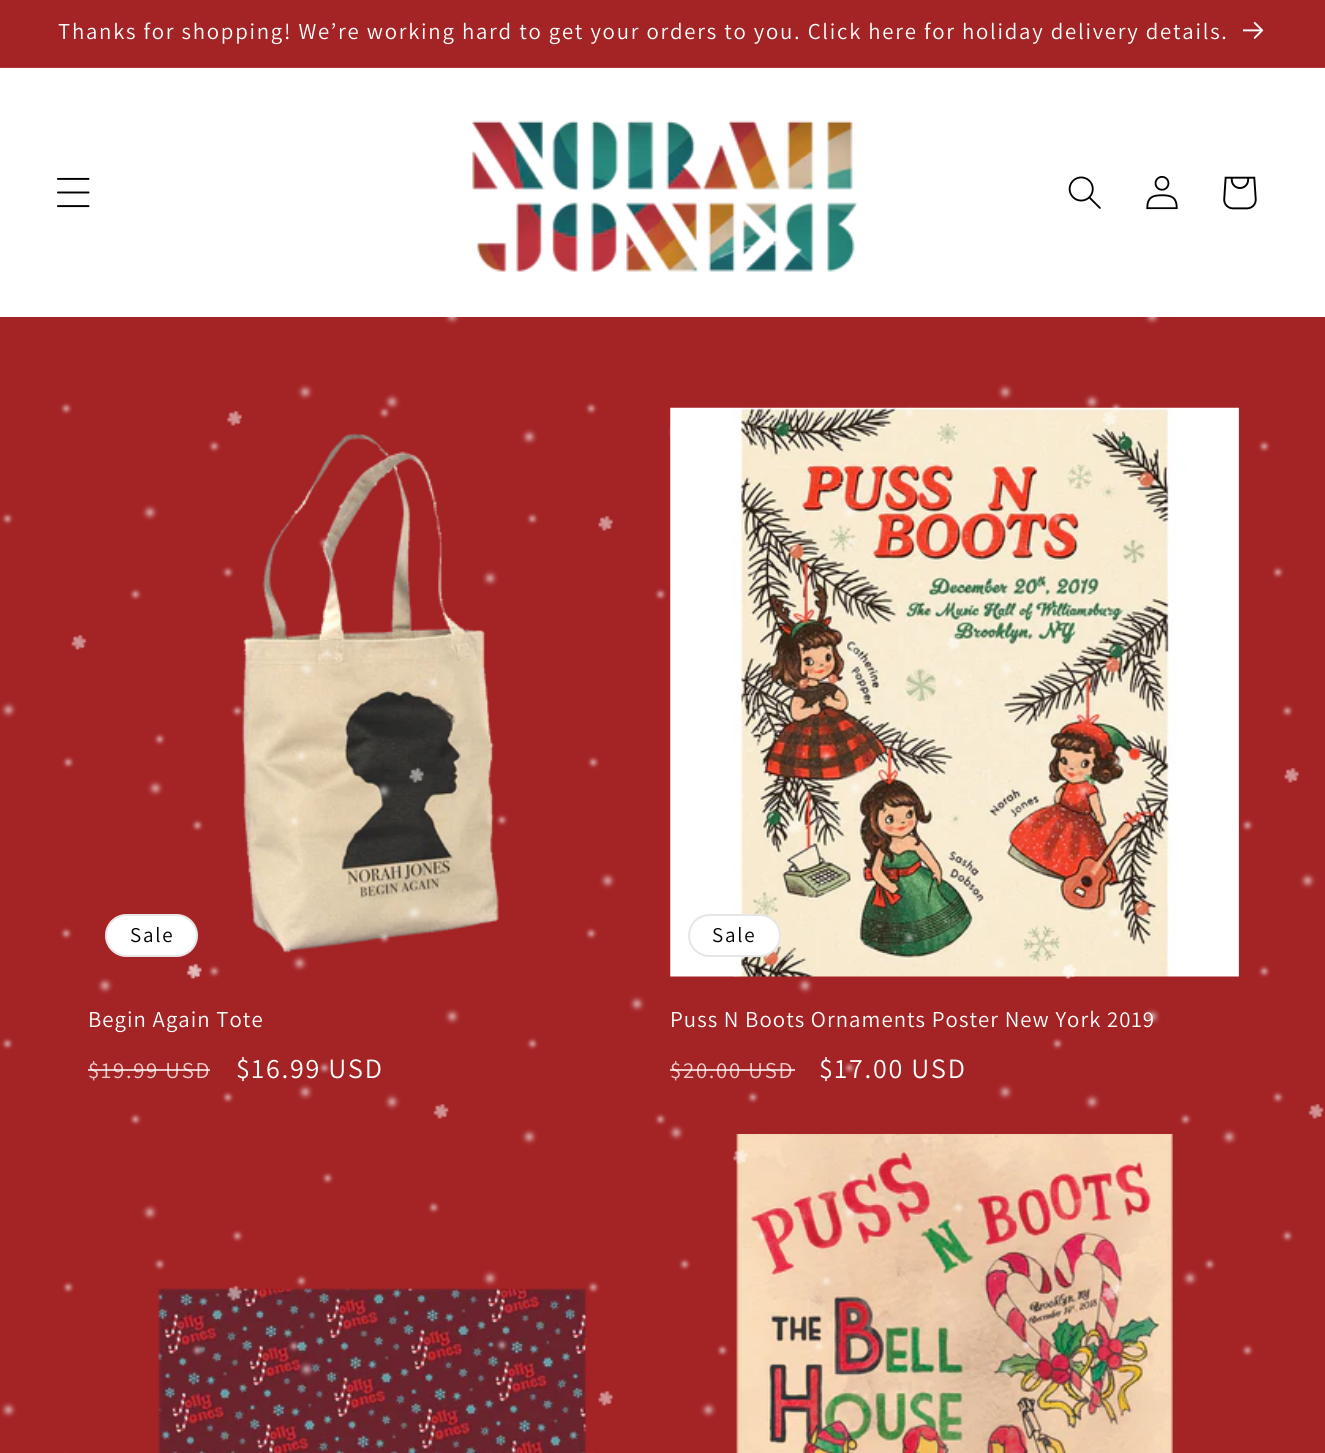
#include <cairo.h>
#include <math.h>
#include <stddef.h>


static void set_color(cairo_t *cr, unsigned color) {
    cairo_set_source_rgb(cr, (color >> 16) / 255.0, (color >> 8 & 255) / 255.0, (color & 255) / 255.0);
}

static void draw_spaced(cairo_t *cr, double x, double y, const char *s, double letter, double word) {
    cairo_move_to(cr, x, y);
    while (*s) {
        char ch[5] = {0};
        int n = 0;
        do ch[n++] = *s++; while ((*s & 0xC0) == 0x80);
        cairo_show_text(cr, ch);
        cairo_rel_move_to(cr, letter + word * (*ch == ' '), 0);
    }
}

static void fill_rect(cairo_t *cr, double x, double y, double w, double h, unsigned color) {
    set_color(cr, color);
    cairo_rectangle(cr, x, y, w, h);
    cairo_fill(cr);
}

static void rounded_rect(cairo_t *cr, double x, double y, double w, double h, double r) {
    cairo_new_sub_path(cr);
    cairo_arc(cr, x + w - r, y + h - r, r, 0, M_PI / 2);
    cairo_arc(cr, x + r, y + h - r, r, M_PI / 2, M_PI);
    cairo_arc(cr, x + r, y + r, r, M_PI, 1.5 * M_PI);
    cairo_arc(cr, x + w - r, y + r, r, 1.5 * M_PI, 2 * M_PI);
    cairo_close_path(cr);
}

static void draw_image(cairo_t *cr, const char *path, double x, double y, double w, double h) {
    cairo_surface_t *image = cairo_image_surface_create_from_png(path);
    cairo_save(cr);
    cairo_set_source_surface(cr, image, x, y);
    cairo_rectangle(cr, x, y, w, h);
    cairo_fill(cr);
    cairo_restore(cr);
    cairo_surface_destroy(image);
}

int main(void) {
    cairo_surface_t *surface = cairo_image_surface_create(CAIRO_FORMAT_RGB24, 1325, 1453);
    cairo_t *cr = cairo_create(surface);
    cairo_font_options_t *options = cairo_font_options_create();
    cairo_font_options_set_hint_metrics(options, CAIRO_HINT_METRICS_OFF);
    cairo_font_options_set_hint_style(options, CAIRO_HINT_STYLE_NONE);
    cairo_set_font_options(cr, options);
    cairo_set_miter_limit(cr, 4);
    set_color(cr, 0xFFFFFF);
    cairo_paint(cr);
    fill_rect(cr, 0, 0, 1325, 67, 0xA42325);
    fill_rect(cr, 0, 67, 1325, 1, 0xAB3536);
    cairo_select_font_face(cr, "Assistant", CAIRO_FONT_SLANT_NORMAL, CAIRO_FONT_WEIGHT_NORMAL);
    cairo_set_font_size(cr, 22.75);
    set_color(cr, 0xFFFFFF);
    draw_spaced(cr, 58, 39, "Thanks for shopping! We’re working hard to get your orders to you. Click here for holiday delivery details.", 1.75, 0);
    draw_image(cr, "assets/img1.png", 1243, 21, 21, 18);
    draw_image(cr, "assets/img2.png", 57, 177, 33, 31);
    draw_image(cr, "assets/img3.png", 472, 120, 386, 152);
    draw_image(cr, "assets/img4.png", 1068, 176, 33, 33);
    draw_image(cr, "assets/img5.png", 1146, 175, 32, 35);
    draw_image(cr, "assets/img6.png", 1223, 176, 34, 34);
    fill_rect(cr, 0, 317, 1325, 1136, 0xA42325);
    set_color(cr, 0xFFFFFF);
    rounded_rect(cr, 105, 914, 93, 43, 21.5);
    cairo_fill(cr);
    rounded_rect(cr, 106, 915, 91, 41, 20.5);
    cairo_set_source_rgba(cr, 0, 0, 0, 0.1);
    cairo_stroke(cr);
    cairo_set_font_size(cr, 21);
    set_color(cr, 0x000000);
    draw_spaced(cr, 130, 942, "Sale", 1.75, 0);
    draw_image(cr, "assets/img8.png", 242, 433, 257, 520);
    cairo_set_font_size(cr, 22.75);
    set_color(cr, 0xFFFFFF);
    draw_spaced(cr, 88, 1027, "Begin Again Tote", 1.05, 0);
    set_color(cr, 0xE8C8C9);
    draw_spaced(cr, 88, 1078, "$19.99 USD", 1.75, 0);
    cairo_set_source_rgba(cr, 1, 1, 1, 0.75);
    cairo_rectangle(cr, 88, 1069, 122, 2);
    cairo_fill(cr);
    cairo_set_font_size(cr, 28);
    set_color(cr, 0xFFFFFF);
    draw_spaced(cr, 236, 1078, "$16.99 USD", 1.75, 0);
    draw_image(cr, "assets/img9.png", 670, 407, 569, 570);
    rounded_rect(cr, 688, 914, 93, 43, 21.5);
    cairo_fill(cr);
    rounded_rect(cr, 689, 915, 91, 41, 20.5);
    cairo_set_source_rgba(cr, 0, 0, 0, 0.1);
    cairo_stroke(cr);
    cairo_set_font_size(cr, 21);
    set_color(cr, 0x000000);
    draw_spaced(cr, 712, 942, "Sale", 1.75, 0);
    cairo_set_font_size(cr, 22.75);
    set_color(cr, 0xFFFFFF);
    draw_spaced(cr, 670, 1027, "Puss N Boots Ornaments Poster New York 2019", 1.05, 0);
    set_color(cr, 0xE8C8C9);
    draw_spaced(cr, 670, 1078, "$20.00 USD", 1.75, 0);
    cairo_set_source_rgba(cr, 1, 1, 1, 0.75);
    cairo_rectangle(cr, 670, 1069, 125, 2);
    cairo_fill(cr);
    cairo_set_font_size(cr, 28);
    set_color(cr, 0xFFFFFF);
    draw_spaced(cr, 819, 1078, "$17.00 USD", 1.75, 0);
    draw_image(cr, "assets/img10.png", 158, 1288, 429, 165);
    draw_image(cr, "assets/img11.png", 736, 1134, 437, 319);
    draw_image(cr, "assets/img7.png", 0, 317, 1324, 1136);
    cairo_surface_write_to_png(surface, "output.png");
    cairo_font_options_destroy(options);
    cairo_destroy(cr);
    cairo_surface_destroy(surface);
    return 0;
}
